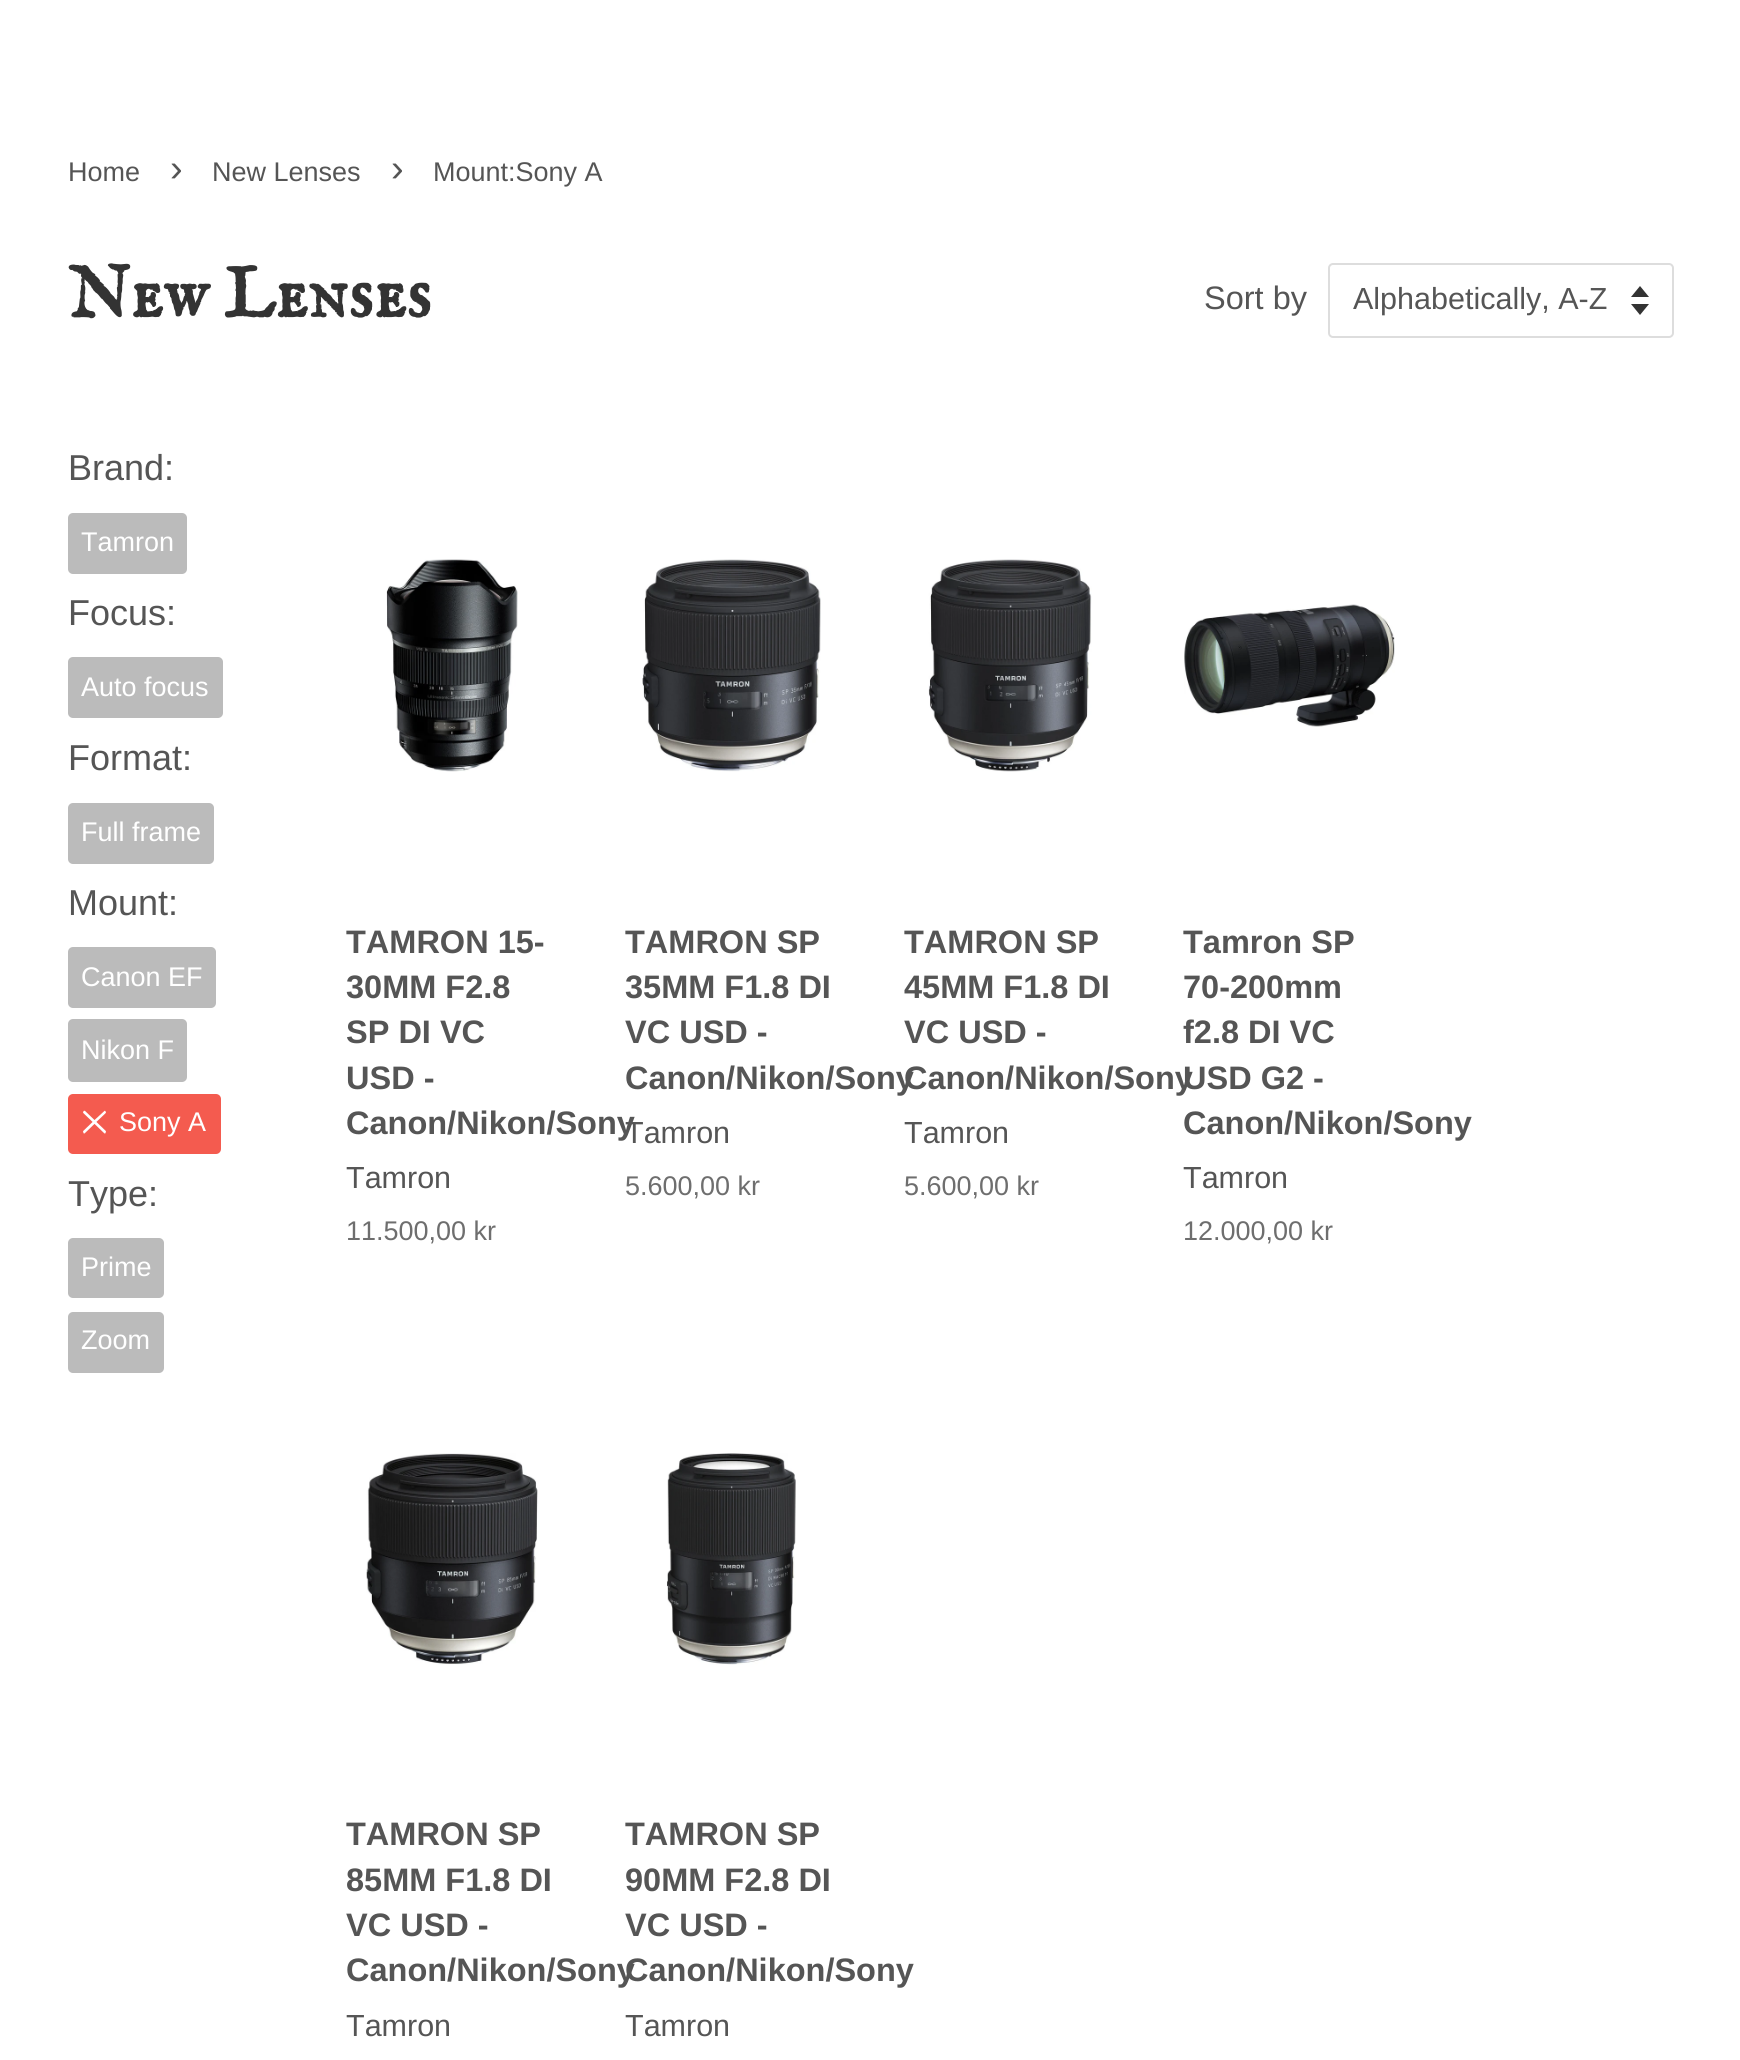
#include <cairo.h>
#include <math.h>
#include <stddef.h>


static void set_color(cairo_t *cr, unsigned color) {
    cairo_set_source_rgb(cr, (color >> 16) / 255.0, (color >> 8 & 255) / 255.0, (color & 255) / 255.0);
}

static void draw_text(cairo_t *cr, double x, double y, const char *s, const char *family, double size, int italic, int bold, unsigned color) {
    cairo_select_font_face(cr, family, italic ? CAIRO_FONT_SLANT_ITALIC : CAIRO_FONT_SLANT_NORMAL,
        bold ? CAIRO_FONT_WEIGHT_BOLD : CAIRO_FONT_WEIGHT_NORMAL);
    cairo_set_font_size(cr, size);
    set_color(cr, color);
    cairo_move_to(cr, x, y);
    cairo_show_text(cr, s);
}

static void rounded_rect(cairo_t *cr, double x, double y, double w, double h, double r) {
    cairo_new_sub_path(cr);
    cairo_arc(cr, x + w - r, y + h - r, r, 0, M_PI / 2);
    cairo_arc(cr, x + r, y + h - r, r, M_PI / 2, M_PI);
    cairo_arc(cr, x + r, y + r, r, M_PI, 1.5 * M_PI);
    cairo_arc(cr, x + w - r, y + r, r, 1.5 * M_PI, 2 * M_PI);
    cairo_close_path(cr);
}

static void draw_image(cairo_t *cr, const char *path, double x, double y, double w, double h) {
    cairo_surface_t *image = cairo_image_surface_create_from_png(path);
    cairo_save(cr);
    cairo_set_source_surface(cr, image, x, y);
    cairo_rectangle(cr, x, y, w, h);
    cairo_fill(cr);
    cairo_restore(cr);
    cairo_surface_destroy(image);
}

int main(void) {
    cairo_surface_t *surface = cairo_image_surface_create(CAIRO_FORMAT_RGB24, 1740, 2060);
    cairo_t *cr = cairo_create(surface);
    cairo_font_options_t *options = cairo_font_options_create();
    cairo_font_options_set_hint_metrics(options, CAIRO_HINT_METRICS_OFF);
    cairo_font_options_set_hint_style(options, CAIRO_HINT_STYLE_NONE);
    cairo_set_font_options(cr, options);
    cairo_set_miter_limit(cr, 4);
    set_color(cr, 0xFFFFFF);
    cairo_paint(cr);
    draw_text(cr, 68, 181, "Home", "Liberation Sans", 27, 0, 0, 0x555555);
    draw_text(cr, 170, 181, "›", "Liberation Sans", 38, 0, 0, 0x555555);
    draw_text(cr, 212, 181, "New Lenses", "Liberation Sans", 27, 0, 0, 0x555555);
    draw_text(cr, 391, 181, "›", "Liberation Sans", 38, 0, 0, 0x555555);
    draw_text(cr, 433, 181, "Mount:Sony A", "Liberation Sans", 27, 0, 0, 0x555555);
    draw_text(cr, 68, 317, "New Lenses", "IM FELL English SC", 72, 0, 1, 0x333333);
    draw_text(cr, 1204, 309, "Sort by", "Liberation Sans", 32.5, 0, 0, 0x555555);
    set_color(cr, 0x333333);
    cairo_new_path(cr);
    cairo_move_to(cr, 1631, 304);
    cairo_line_to(cr, 1640, 315);
    cairo_line_to(cr, 1649, 304);
    cairo_close_path(cr);
    cairo_move_to(cr, 1640, 286);
    cairo_line_to(cr, 1631, 297);
    cairo_line_to(cr, 1649, 297);
    cairo_close_path(cr);
    cairo_fill(cr);
    rounded_rect(cr, 1329, 264, 344, 73, 4);
    set_color(cr, 0xDDDDDD);
    cairo_stroke(cr);
    draw_text(cr, 1353, 309, "Alphabetically, A-Z", "Liberation Sans", 30.5, 0, 0, 0x555555);
    draw_text(cr, 68, 480, "Brand:", "Liberation Sans", 36, 0, 0, 0x555555);
    set_color(cr, 0xBBBBBB);
    rounded_rect(cr, 68, 513, 119, 61, 5);
    cairo_fill(cr);
    draw_text(cr, 81, 551, "Tamron", "Liberation Sans", 27, 0, 0, 0xFFFFFF);
    draw_text(cr, 68, 625, "Focus:", "Liberation Sans", 36, 0, 0, 0x555555);
    set_color(cr, 0xBBBBBB);
    rounded_rect(cr, 68, 657, 155, 61, 5);
    cairo_fill(cr);
    draw_text(cr, 81, 696, "Auto focus", "Liberation Sans", 27, 0, 0, 0xFFFFFF);
    draw_text(cr, 68, 770, "Format:", "Liberation Sans", 36, 0, 0, 0x555555);
    set_color(cr, 0xBBBBBB);
    rounded_rect(cr, 68, 803, 146, 61, 5);
    cairo_fill(cr);
    draw_text(cr, 81, 841, "Full frame", "Liberation Sans", 27, 0, 0, 0xFFFFFF);
    draw_text(cr, 68, 915, "Mount:", "Liberation Sans", 36, 0, 0, 0x555555);
    set_color(cr, 0xBBBBBB);
    rounded_rect(cr, 68, 947, 148, 61, 5);
    cairo_fill(cr);
    draw_text(cr, 81, 986, "Canon EF", "Liberation Sans", 27, 0, 0, 0xFFFFFF);
    set_color(cr, 0xBBBBBB);
    rounded_rect(cr, 68, 1019, 119, 63, 5);
    cairo_fill(cr);
    draw_text(cr, 81, 1059, "Nikon F", "Liberation Sans", 27, 0, 0, 0xFFFFFF);
    set_color(cr, 0xF45B4F);
    rounded_rect(cr, 68, 1094, 153, 60, 5);
    cairo_fill(cr);
    draw_image(cr, "assets/img1.png", 83, 1110, 23, 24);
    draw_text(cr, 119, 1131, "Sony A", "Liberation Sans", 27, 0, 0, 0xFFFFFF);
    draw_text(cr, 68, 1206, "Type:", "Liberation Sans", 36, 0, 0, 0x555555);
    set_color(cr, 0xBBBBBB);
    rounded_rect(cr, 68, 1238, 96, 60, 5);
    cairo_fill(cr);
    draw_text(cr, 81, 1276, "Prime", "Liberation Sans", 27, 0, 0, 0xFFFFFF);
    set_color(cr, 0xBBBBBB);
    rounded_rect(cr, 68, 1312, 96, 61, 5);
    cairo_fill(cr);
    draw_text(cr, 81, 1349, "Zoom", "Liberation Sans", 27, 0, 0, 0xFFFFFF);
    draw_image(cr, "assets/img2.png", 386, 559, 132, 213);
    draw_text(cr, 346, 953, "TAMRON 15-", "Liberation Sans", 32.5, 0, 1, 0x555555);
    draw_text(cr, 346, 998, "30MM F2.8", "Liberation Sans", 32.5, 0, 1, 0x555555);
    draw_text(cr, 346, 1043, "SP DI VC", "Liberation Sans", 32.5, 0, 1, 0x555555);
    draw_text(cr, 346, 1089, "USD -", "Liberation Sans", 32.5, 0, 1, 0x555555);
    draw_text(cr, 346, 1134, "Canon/Nikon/Sony", "Liberation Sans", 32.5, 0, 1, 0x555555);
    draw_text(cr, 346, 1188, "Tamron", "Liberation Sans", 30.5, 0, 0, 0x555555);
    draw_text(cr, 346, 1240, "11.500,00 kr", "Liberation Sans", 27, 0, 0, 0x6E6E6E);
    draw_image(cr, "assets/img3.png", 642, 559, 179, 213);
    draw_text(cr, 625, 953, "TAMRON SP", "Liberation Sans", 32.5, 0, 1, 0x555555);
    draw_text(cr, 625, 998, "35MM F1.8 DI", "Liberation Sans", 32.5, 0, 1, 0x555555);
    draw_text(cr, 625, 1043, "VC USD -", "Liberation Sans", 32.5, 0, 1, 0x555555);
    draw_text(cr, 625, 1089, "Canon/Nikon/Sony", "Liberation Sans", 32.5, 0, 1, 0x555555);
    draw_text(cr, 625, 1143, "Tamron", "Liberation Sans", 30.5, 0, 0, 0x555555);
    draw_text(cr, 625, 1195, "5.600,00 kr", "Liberation Sans", 27, 0, 0, 0x6E6E6E);
    draw_image(cr, "assets/img4.png", 928, 559, 164, 213);
    draw_text(cr, 904, 953, "TAMRON SP", "Liberation Sans", 32.5, 0, 1, 0x555555);
    draw_text(cr, 904, 998, "45MM F1.8 DI", "Liberation Sans", 32.5, 0, 1, 0x555555);
    draw_text(cr, 904, 1043, "VC USD -", "Liberation Sans", 32.5, 0, 1, 0x555555);
    draw_text(cr, 904, 1089, "Canon/Nikon/Sony", "Liberation Sans", 32.5, 0, 1, 0x555555);
    draw_text(cr, 904, 1143, "Tamron", "Liberation Sans", 30.5, 0, 0, 0x555555);
    draw_text(cr, 904, 1195, "5.600,00 kr", "Liberation Sans", 27, 0, 0, 0x6E6E6E);
    draw_image(cr, "assets/img5.png", 1184, 604, 211, 123);
    draw_text(cr, 1183, 953, "Tamron SP", "Liberation Sans", 32.5, 0, 1, 0x555555);
    draw_text(cr, 1183, 998, "70-200mm", "Liberation Sans", 32.5, 0, 1, 0x555555);
    draw_text(cr, 1183, 1043, "f2.8 DI VC", "Liberation Sans", 32.5, 0, 1, 0x555555);
    draw_text(cr, 1183, 1089, "USD G2 -", "Liberation Sans", 32.5, 0, 1, 0x555555);
    draw_text(cr, 1183, 1134, "Canon/Nikon/Sony", "Liberation Sans", 32.5, 0, 1, 0x555555);
    draw_text(cr, 1183, 1188, "Tamron", "Liberation Sans", 30.5, 0, 0, 0x555555);
    draw_text(cr, 1183, 1240, "12.000,00 kr", "Liberation Sans", 27, 0, 0, 0x6E6E6E);
    draw_image(cr, "assets/img6.png", 366, 1453, 172, 212);
    draw_text(cr, 346, 1845, "TAMRON SP", "Liberation Sans", 32.5, 0, 1, 0x555555);
    draw_text(cr, 346, 1891, "85MM F1.8 DI", "Liberation Sans", 32.5, 0, 1, 0x555555);
    draw_text(cr, 346, 1936, "VC USD -", "Liberation Sans", 32.5, 0, 1, 0x555555);
    draw_text(cr, 346, 1981, "Canon/Nikon/Sony", "Liberation Sans", 32.5, 0, 1, 0x555555);
    draw_text(cr, 346, 2036, "Tamron", "Liberation Sans", 30.5, 0, 0, 0x555555);
    draw_image(cr, "assets/img7.png", 667, 1453, 129, 212);
    draw_text(cr, 625, 1845, "TAMRON SP", "Liberation Sans", 32.5, 0, 1, 0x555555);
    draw_text(cr, 625, 1891, "90MM F2.8 DI", "Liberation Sans", 32.5, 0, 1, 0x555555);
    draw_text(cr, 625, 1936, "VC USD -", "Liberation Sans", 32.5, 0, 1, 0x555555);
    draw_text(cr, 625, 1981, "Canon/Nikon/Sony", "Liberation Sans", 32.5, 0, 1, 0x555555);
    draw_text(cr, 625, 2036, "Tamron", "Liberation Sans", 30.5, 0, 0, 0x555555);
    cairo_surface_write_to_png(surface, "output.png");
    cairo_font_options_destroy(options);
    cairo_destroy(cr);
    cairo_surface_destroy(surface);
    return 0;
}
